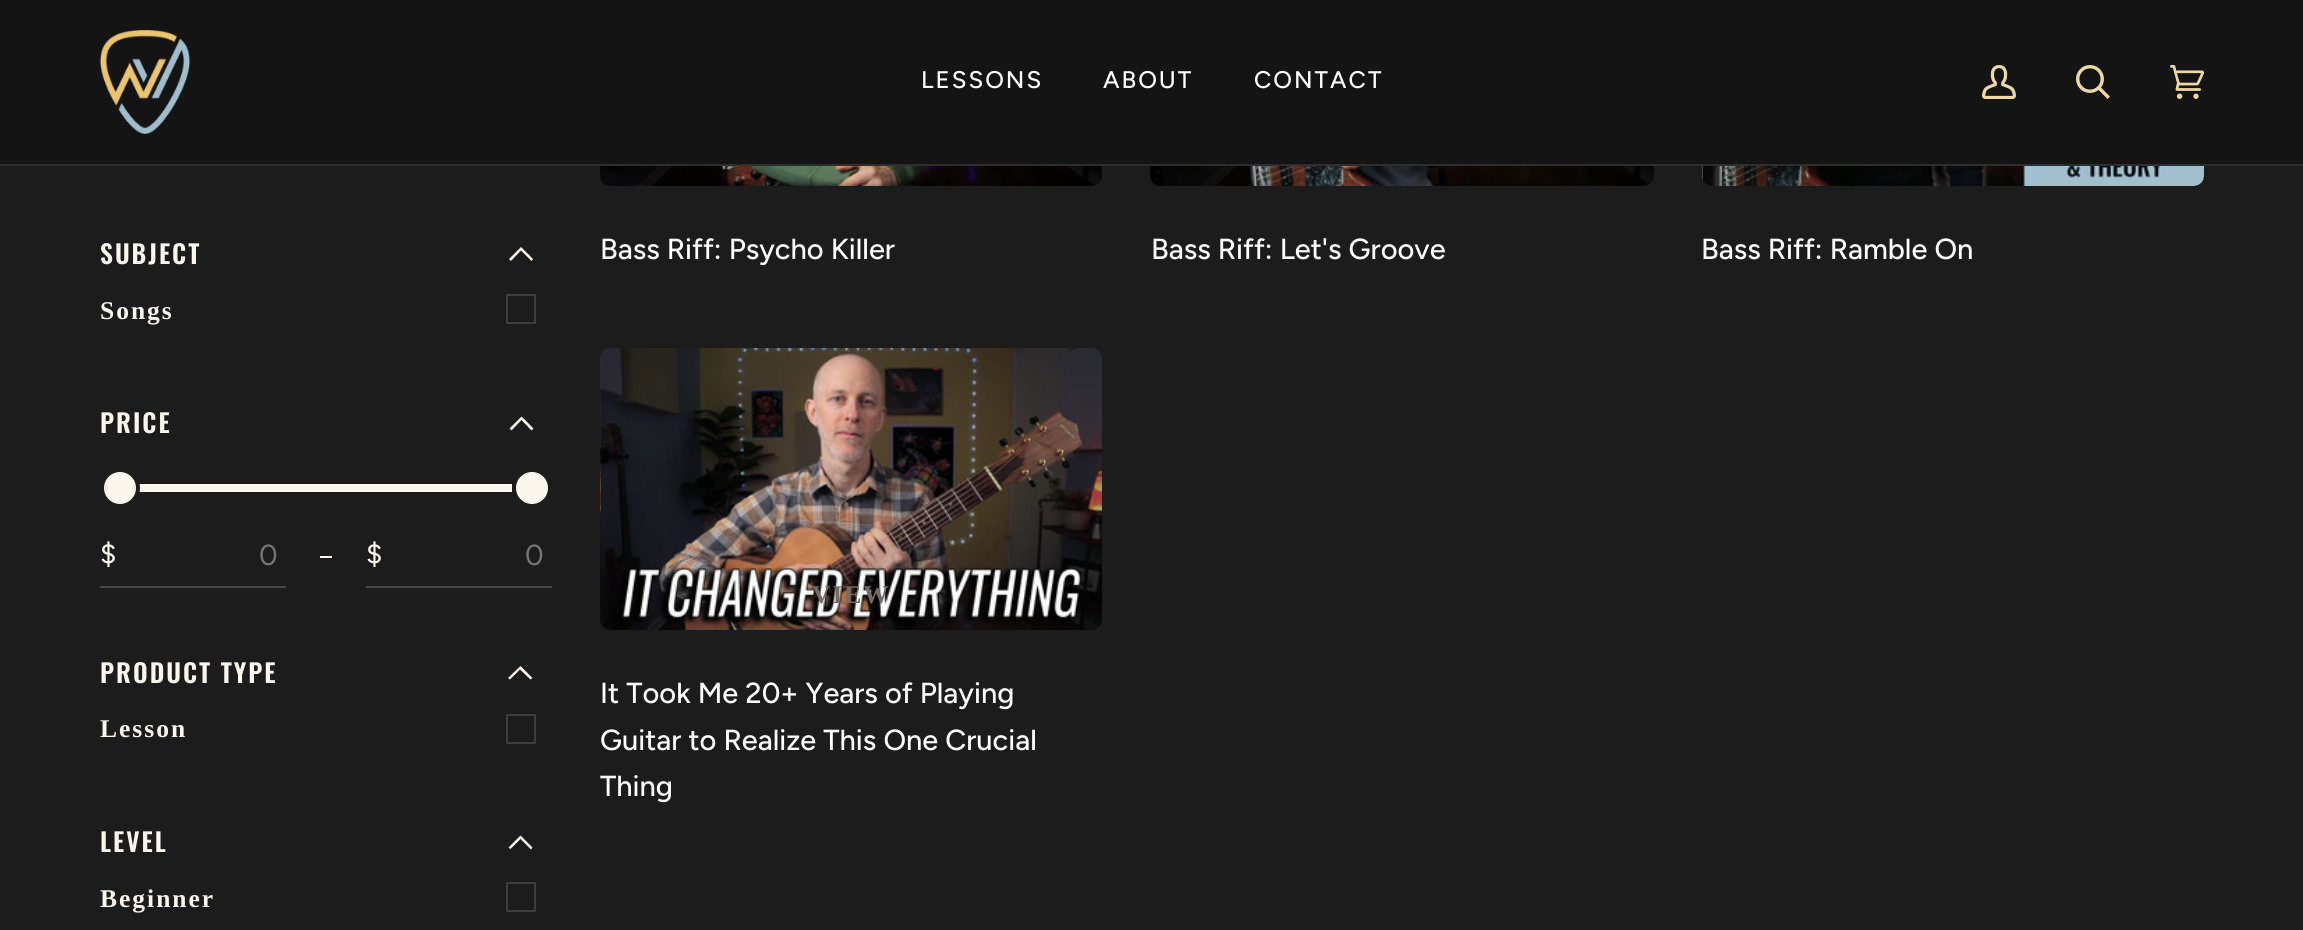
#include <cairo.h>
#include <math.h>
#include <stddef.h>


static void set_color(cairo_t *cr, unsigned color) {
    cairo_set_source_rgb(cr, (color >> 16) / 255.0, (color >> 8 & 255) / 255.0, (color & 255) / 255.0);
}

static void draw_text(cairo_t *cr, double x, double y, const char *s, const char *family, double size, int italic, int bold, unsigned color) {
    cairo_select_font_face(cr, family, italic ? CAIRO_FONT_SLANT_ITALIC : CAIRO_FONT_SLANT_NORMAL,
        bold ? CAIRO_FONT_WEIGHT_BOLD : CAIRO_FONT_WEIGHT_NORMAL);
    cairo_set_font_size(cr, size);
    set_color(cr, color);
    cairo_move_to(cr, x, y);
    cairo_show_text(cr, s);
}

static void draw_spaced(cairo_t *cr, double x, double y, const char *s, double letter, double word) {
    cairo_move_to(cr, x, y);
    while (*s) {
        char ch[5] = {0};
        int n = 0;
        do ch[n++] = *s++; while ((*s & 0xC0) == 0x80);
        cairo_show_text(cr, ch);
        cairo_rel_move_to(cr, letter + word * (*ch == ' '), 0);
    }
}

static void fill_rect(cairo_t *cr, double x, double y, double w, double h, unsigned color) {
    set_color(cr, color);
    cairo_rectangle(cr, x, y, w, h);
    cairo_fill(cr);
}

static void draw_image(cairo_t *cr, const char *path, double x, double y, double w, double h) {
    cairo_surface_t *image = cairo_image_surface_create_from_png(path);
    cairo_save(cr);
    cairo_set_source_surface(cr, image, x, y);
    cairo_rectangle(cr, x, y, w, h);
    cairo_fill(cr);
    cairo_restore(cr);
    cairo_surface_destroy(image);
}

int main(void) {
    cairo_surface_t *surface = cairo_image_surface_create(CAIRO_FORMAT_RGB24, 2303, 930);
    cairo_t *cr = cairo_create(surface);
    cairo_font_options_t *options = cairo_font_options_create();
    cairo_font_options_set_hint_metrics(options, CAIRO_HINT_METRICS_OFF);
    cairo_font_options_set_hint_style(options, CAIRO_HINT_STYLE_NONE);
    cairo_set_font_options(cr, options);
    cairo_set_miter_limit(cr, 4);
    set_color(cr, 0x1C1C1C);
    cairo_paint(cr);
    fill_rect(cr, 0, 164, 2303, 2, 0x2E2E2E);
    fill_rect(cr, 0, 0, 2303, 164, 0x141414);
    draw_image(cr, "assets/img1.png", 100, 30, 90, 104);
    cairo_select_font_face(cr, "Figtree Medium", CAIRO_FONT_SLANT_NORMAL, CAIRO_FONT_WEIGHT_NORMAL);
    cairo_set_font_size(cr, 24);
    set_color(cr, 0xFFFFFF);
    draw_spaced(cr, 921, 88, "LESSONS", 2, 0);
    draw_spaced(cr, 1103, 88, "ABOUT", 2, 0);
    draw_spaced(cr, 1254, 88, "CONTACT", 2, 0);
    draw_image(cr, "assets/img2.png", 1982, 65, 34, 34);
    draw_image(cr, "assets/img3.png", 2076, 65, 34, 34);
    draw_image(cr, "assets/img4.png", 2170, 65, 34, 34);
    cairo_select_font_face(cr, "oswald SemiBold", CAIRO_FONT_SLANT_NORMAL, CAIRO_FONT_WEIGHT_NORMAL);
    cairo_set_font_size(cr, 25.5);
    set_color(cr, 0xFBF7EE);
    draw_spaced(cr, 100, 264, "SUBJECT", 2, 0);
    cairo_set_fill_rule(cr, CAIRO_FILL_RULE_EVEN_ODD);
    cairo_new_path(cr);
    cairo_move_to(cr, 521, 250.5);
    cairo_line_to(cr, 511, 261);
    cairo_line_to(cr, 509, 259);
    cairo_line_to(cr, 521, 247);
    cairo_line_to(cr, 533, 259);
    cairo_line_to(cr, 531.5, 261);
    cairo_close_path(cr);
    cairo_fill(cr);
    cairo_select_font_face(cr, "Liberation Serif", CAIRO_FONT_SLANT_NORMAL, CAIRO_FONT_WEIGHT_BOLD);
    draw_spaced(cr, 100, 319, "Songs", 2, 0);
    cairo_new_path(cr);
    cairo_move_to(cr, 507, 295);
    cairo_line_to(cr, 535, 295);
    cairo_line_to(cr, 535, 323);
    cairo_line_to(cr, 507, 323);
    cairo_close_path(cr);
    set_color(cr, 0x494846);
    cairo_set_line_width(cr, 1.5);
    cairo_stroke(cr);
    cairo_select_font_face(cr, "oswald SemiBold", CAIRO_FONT_SLANT_NORMAL, CAIRO_FONT_WEIGHT_NORMAL);
    set_color(cr, 0xFBF7EE);
    draw_spaced(cr, 100, 433, "PRICE", 2, 0);
    cairo_new_path(cr);
    cairo_move_to(cr, 521.5, 420);
    cairo_line_to(cr, 511.5, 430.5);
    cairo_line_to(cr, 509.5, 428.5);
    cairo_line_to(cr, 521.5, 416.5);
    cairo_line_to(cr, 533.5, 428.5);
    cairo_line_to(cr, 531.5, 430.5);
    cairo_close_path(cr);
    cairo_fill(cr);
    cairo_new_path(cr);
    cairo_move_to(cr, 104, 484);
    cairo_line_to(cr, 512, 484);
    cairo_line_to(cr, 512, 492);
    cairo_line_to(cr, 104, 492);
    cairo_curve_to(cr, 102, 492, 100, 490, 100, 488);
    cairo_curve_to(cr, 100, 486, 102, 484, 104, 484);
    cairo_close_path(cr);
    cairo_fill(cr);
    cairo_arc(cr, 120, 488, 18, 0, 2 * M_PI);
    cairo_fill_preserve(cr);
    set_color(cr, 0x1C1C1C);
    cairo_set_line_width(cr, 4);
    cairo_stroke(cr);
    set_color(cr, 0xFBF7EE);
    cairo_arc(cr, 532, 488, 18, 0, 2 * M_PI);
    cairo_fill_preserve(cr);
    set_color(cr, 0x1C1C1C);
    cairo_stroke(cr);
    fill_rect(cr, 100, 586, 186, 2, 0x494846);
    draw_text(cr, 100, 564, "$", "Figtree", 29, 0, 0, 0xFBF7EE);
    draw_text(cr, 259, 565, "0", "Figtree", 29, 0, 0, 0x757575);
    fill_rect(cr, 320, 556, 12, 2, 0xFBF7EE);
    fill_rect(cr, 366, 586, 186, 2, 0x494846);
    draw_text(cr, 366, 564, "$", "Figtree", 29, 0, 0, 0xFBF7EE);
    draw_text(cr, 525, 565, "0", "Figtree", 29, 0, 0, 0x757575);
    cairo_select_font_face(cr, "oswald SemiBold", CAIRO_FONT_SLANT_NORMAL, CAIRO_FONT_WEIGHT_NORMAL);
    cairo_set_font_size(cr, 25.5);
    set_color(cr, 0xFBF7EE);
    draw_spaced(cr, 100, 683, "PRODUCT TYPE", 2, 0);
    cairo_set_fill_rule(cr, CAIRO_FILL_RULE_WINDING);
    cairo_new_path(cr);
    cairo_move_to(cr, 520, 669.5);
    cairo_line_to(cr, 510, 679.5);
    cairo_line_to(cr, 508.5, 678.5);
    cairo_line_to(cr, 508.5, 677.5);
    cairo_line_to(cr, 520.5, 666);
    cairo_line_to(cr, 532.5, 678);
    cairo_line_to(cr, 530.5, 679.5);
    cairo_close_path(cr);
    cairo_fill(cr);
    cairo_select_font_face(cr, "Liberation Serif", CAIRO_FONT_SLANT_NORMAL, CAIRO_FONT_WEIGHT_BOLD);
    draw_spaced(cr, 100, 737, "Lesson", 2, 0);
    cairo_new_path(cr);
    cairo_move_to(cr, 507, 715);
    cairo_line_to(cr, 535, 715);
    cairo_line_to(cr, 535, 743);
    cairo_line_to(cr, 507, 743);
    cairo_close_path(cr);
    set_color(cr, 0x494846);
    cairo_set_line_width(cr, 1.5);
    cairo_stroke(cr);
    cairo_select_font_face(cr, "oswald SemiBold", CAIRO_FONT_SLANT_NORMAL, CAIRO_FONT_WEIGHT_NORMAL);
    set_color(cr, 0xFBF7EE);
    draw_spaced(cr, 100, 852, "LEVEL", 2, 0);
    cairo_set_fill_rule(cr, CAIRO_FILL_RULE_EVEN_ODD);
    cairo_new_path(cr);
    cairo_move_to(cr, 520.5, 839);
    cairo_line_to(cr, 510.5, 849);
    cairo_line_to(cr, 508.5, 847.5);
    cairo_line_to(cr, 520.5, 835.5);
    cairo_line_to(cr, 532.5, 847.5);
    cairo_line_to(cr, 531, 849.5);
    cairo_close_path(cr);
    cairo_fill(cr);
    cairo_select_font_face(cr, "Liberation Serif", CAIRO_FONT_SLANT_NORMAL, CAIRO_FONT_WEIGHT_BOLD);
    draw_spaced(cr, 100, 907, "Beginner", 2, 0);
    cairo_new_path(cr);
    cairo_move_to(cr, 507, 883);
    cairo_line_to(cr, 535, 883);
    cairo_line_to(cr, 535, 911);
    cairo_line_to(cr, 507, 911);
    cairo_close_path(cr);
    set_color(cr, 0x494846);
    cairo_stroke(cr);
    draw_image(cr, "assets/img5.png", 600, 166, 502, 20);
    draw_text(cr, 600, 259, "Bass Riff: Psycho Killer", "Figtree Medium", 29, 0, 0, 0xFFFFFF);
    draw_image(cr, "assets/img6.png", 1150, 166, 504, 20);
    draw_text(cr, 1151, 259, "Bass Riff: Let's Groove", "Figtree Medium", 29, 0, 0, 0xFFFFFF);
    draw_image(cr, "assets/img7.png", 1702, 166, 502, 20);
    draw_text(cr, 1701, 259, "Bass Riff: Ramble On", "Figtree Medium", 29, 0, 0, 0xFFFFFF);
    draw_image(cr, "assets/img8.png", 600, 348, 502, 282);
    cairo_select_font_face(cr, "Liberation Serif", CAIRO_FONT_SLANT_NORMAL, CAIRO_FONT_WEIGHT_BOLD);
    cairo_set_font_size(cr, 25.5);
    set_color(cr, 0x746B67);
    draw_spaced(cr, 812, 603, "VIEW", 2, 0);
    draw_text(cr, 600, 703, "It Took Me 20+ Years of Playing", "Figtree Medium", 29, 0, 0, 0xFFFFFF);
    draw_text(cr, 600, 750, "Guitar to Realize This One Crucial", "Figtree Medium", 29, 0, 0, 0xFFFFFF);
    draw_text(cr, 600, 796, "Thing", "Figtree Medium", 29, 0, 0, 0xFFFFFF);
    cairo_surface_write_to_png(surface, "output.png");
    cairo_font_options_destroy(options);
    cairo_destroy(cr);
    cairo_surface_destroy(surface);
    return 0;
}
